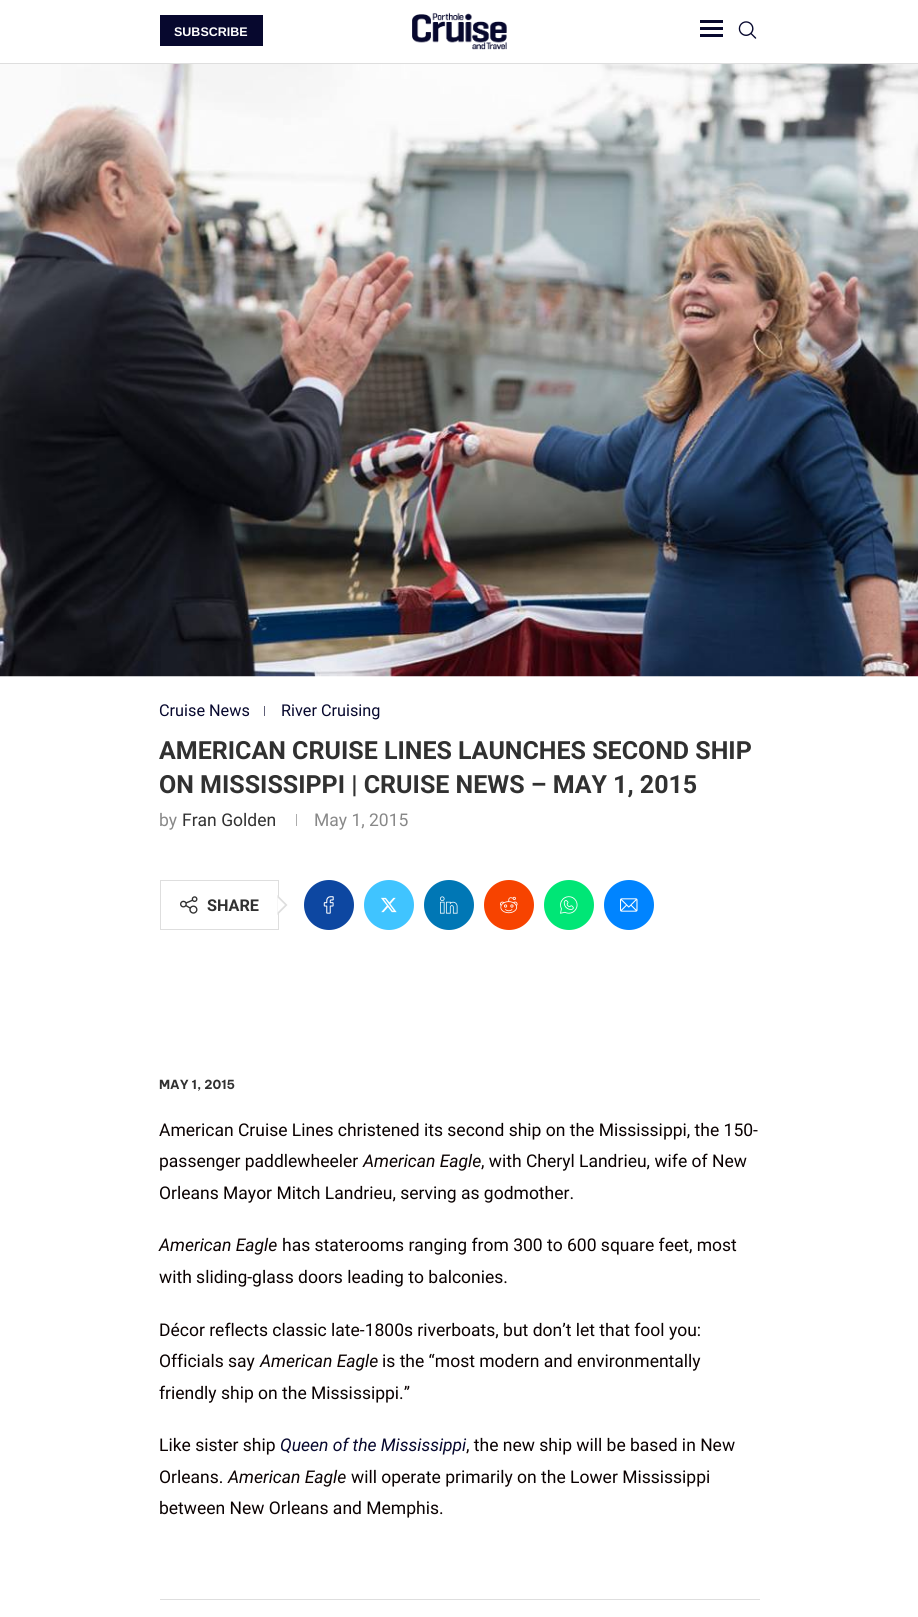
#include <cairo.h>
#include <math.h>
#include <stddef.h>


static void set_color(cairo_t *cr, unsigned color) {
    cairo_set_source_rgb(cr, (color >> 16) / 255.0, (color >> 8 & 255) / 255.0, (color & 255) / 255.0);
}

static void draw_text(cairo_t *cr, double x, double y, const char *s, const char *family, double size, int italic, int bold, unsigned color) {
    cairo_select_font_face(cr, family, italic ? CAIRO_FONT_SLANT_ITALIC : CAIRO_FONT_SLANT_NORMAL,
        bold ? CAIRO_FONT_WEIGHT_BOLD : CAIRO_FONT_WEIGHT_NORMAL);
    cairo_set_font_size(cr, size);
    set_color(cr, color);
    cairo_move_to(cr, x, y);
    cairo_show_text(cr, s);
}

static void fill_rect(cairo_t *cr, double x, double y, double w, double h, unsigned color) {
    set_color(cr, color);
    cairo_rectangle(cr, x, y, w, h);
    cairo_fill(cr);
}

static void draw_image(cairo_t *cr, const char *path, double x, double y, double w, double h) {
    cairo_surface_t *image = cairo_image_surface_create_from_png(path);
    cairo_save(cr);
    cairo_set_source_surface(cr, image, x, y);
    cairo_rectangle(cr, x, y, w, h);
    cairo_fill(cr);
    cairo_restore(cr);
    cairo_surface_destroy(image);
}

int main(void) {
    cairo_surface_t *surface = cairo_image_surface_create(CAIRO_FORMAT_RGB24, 918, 1617);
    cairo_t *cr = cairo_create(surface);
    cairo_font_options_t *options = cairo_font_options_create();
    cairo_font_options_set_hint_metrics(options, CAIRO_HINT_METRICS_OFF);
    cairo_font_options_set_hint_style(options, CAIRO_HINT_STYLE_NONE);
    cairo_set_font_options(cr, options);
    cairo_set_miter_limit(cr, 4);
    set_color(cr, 0xFFFFFF);
    cairo_paint(cr);
    fill_rect(cr, 0, 63, 918, 1, 0xDEDEDE);
    fill_rect(cr, 160, 15, 103, 31, 0x07082E);
    draw_text(cr, 174, 36, "SUBSCRIBE", "Liberation Sans", 12.5, 0, 1, 0xFFFFFF);
    draw_image(cr, "assets/img1.png", 412, 12, 95, 38);
    fill_rect(cr, 700, 20, 23, 3, 0x07082E);
    fill_rect(cr, 700, 27, 23, 3, 0x07082E);
    fill_rect(cr, 700, 34, 23, 3, 0x07082E);
    draw_image(cr, "assets/img2.png", 738, 21, 19, 18);
    draw_image(cr, "assets/img3.png", 0, 64, 918, 613);
    draw_text(cr, 159, 716, "Cruise News", "Roboto", 16.25, 0, 0, 0x07082E);
    fill_rect(cr, 264, 706, 1, 10, 0x5E5E77);
    draw_text(cr, 281, 716, "River Cruising", "Roboto", 16.25, 0, 0, 0x07082E);
    draw_text(cr, 159, 759, "AMERICAN CRUISE LINES LAUNCHES SECOND SHIP", "Roboto", 25, 0, 1, 0x313131);
    draw_text(cr, 159, 793, "ON MISSISSIPPI | CRUISE NEWS – MAY 1, 2015", "Roboto", 25, 0, 1, 0x313131);
    draw_text(cr, 159, 826, "by", "Roboto", 17.5, 0, 0, 0x888888);
    draw_text(cr, 182, 826, "Fran Golden", "Roboto", 17.5, 0, 0, 0x313131);
    fill_rect(cr, 296, 814, 1, 12, 0xACACAC);
    draw_text(cr, 314, 826, "May 1, 2015", "Roboto", 17.5, 0, 0, 0x888888);
    cairo_rectangle(cr, 160.5, 880.5, 118, 49);
    set_color(cr, 0xDEDEDE);
    cairo_set_line_width(cr, 1);
    cairo_stroke(cr);
    draw_image(cr, "assets/img4.png", 180, 896, 18, 18);
    cairo_new_path(cr);
    cairo_move_to(cr, 277.5, 915);
    cairo_line_to(cr, 277.5, 895);
    cairo_line_to(cr, 287.5, 905);
    cairo_close_path(cr);
    cairo_fill(cr);
    draw_text(cr, 207, 911, "SHARE", "Roboto", 16.25, 0, 1, 0x313131);
    set_color(cr, 0xFFFFFF);
    cairo_new_path(cr);
    cairo_move_to(cr, 277.5, 912.5);
    cairo_line_to(cr, 277.5, 897.5);
    cairo_line_to(cr, 285, 905);
    cairo_close_path(cr);
    cairo_fill(cr);
    set_color(cr, 0x0D47A1);
    cairo_arc(cr, 329, 905, 25, 0, 2 * M_PI);
    cairo_fill(cr);
    draw_image(cr, "assets/img5.png", 323, 896, 11, 18);
    set_color(cr, 0x40C4FF);
    cairo_arc(cr, 389, 905, 25, 0, 2 * M_PI);
    cairo_fill(cr);
    draw_image(cr, "assets/img6.png", 381, 897, 16, 16);
    set_color(cr, 0x0077B5);
    cairo_arc(cr, 449, 905, 25, 0, 2 * M_PI);
    cairo_fill(cr);
    draw_image(cr, "assets/img7.png", 440, 896, 18, 18);
    set_color(cr, 0xF74300);
    cairo_arc(cr, 509, 905, 25, 0, 2 * M_PI);
    cairo_fill(cr);
    draw_image(cr, "assets/img8.png", 500, 896, 18, 18);
    set_color(cr, 0x00E676);
    cairo_arc(cr, 569, 905, 25, 0, 2 * M_PI);
    cairo_fill(cr);
    draw_image(cr, "assets/img9.png", 560, 896, 18, 18);
    set_color(cr, 0x0084FF);
    cairo_arc(cr, 629, 905, 25, 0, 2 * M_PI);
    cairo_fill(cr);
    draw_image(cr, "assets/img10.png", 620, 898, 18, 14);
    draw_text(cr, 159, 1089, "MAY 1, 2015", "Be Vietnam Pro", 12.5, 0, 1, 0x313131);
    draw_text(cr, 159, 1136, "American Cruise Lines christened its second ship on the Mississippi, the 150-", "Roboto", 17.5, 0, 0, 0x0A0101);
    draw_text(cr, 159, 1167, "passenger paddlewheeler", "Roboto", 17.5, 0, 0, 0x0A0101);
    draw_text(cr, 363, 1167, "American Eagle", "Roboto", 17.5, 1, 0, 0x0A0101);
    draw_text(cr, 481, 1167, ", with Cheryl Landrieu, wife of New", "Roboto", 17.5, 0, 0, 0x0A0101);
    draw_text(cr, 159, 1199, "Orleans Mayor Mitch Landrieu, serving as godmother.", "Roboto", 17.5, 0, 0, 0x0A0101);
    draw_text(cr, 159, 1251, "American Eagle", "Roboto", 17.5, 1, 0, 0x0A0101);
    draw_text(cr, 282, 1251, "has staterooms ranging from 300 to 600 square feet, most", "Roboto", 17.5, 0, 0, 0x0A0101);
    draw_text(cr, 159, 1283, "with sliding-glass doors leading to balconies.", "Roboto", 17.5, 0, 0, 0x0A0101);
    draw_text(cr, 159, 1336, "Décor reflects classic late-1800s riverboats, but don’t let that fool you:", "Roboto", 17.5, 0, 0, 0x0A0101);
    draw_text(cr, 159, 1367, "Officials say", "Roboto", 17.5, 0, 0, 0x0A0101);
    draw_text(cr, 260, 1367, "American Eagle", "Roboto", 17.5, 1, 0, 0x0A0101);
    draw_text(cr, 382, 1367, "is the “most modern and environmentally", "Roboto", 17.5, 0, 0, 0x0A0101);
    draw_text(cr, 159, 1399, "friendly ship on the Mississippi.”", "Roboto", 17.5, 0, 0, 0x0A0101);
    draw_text(cr, 159, 1451, "Like sister ship", "Roboto", 17.5, 0, 0, 0x0A0101);
    draw_text(cr, 280, 1451, "Queen of the Mississippi", "Roboto", 17.5, 1, 0, 0x07082E);
    draw_text(cr, 466, 1451, ", the new ship will be based in New", "Roboto", 17.5, 0, 0, 0x0A0101);
    draw_text(cr, 159, 1483, "Orleans.", "Roboto", 17.5, 0, 0, 0x0A0101);
    draw_text(cr, 228, 1483, "American Eagle", "Roboto", 17.5, 1, 0, 0x0A0101);
    draw_text(cr, 351, 1483, "will operate primarily on the Lower Mississippi", "Roboto", 17.5, 0, 0, 0x0A0101);
    draw_text(cr, 159, 1514, "between New Orleans and Memphis.", "Roboto", 17.5, 0, 0, 0x0A0101);
    fill_rect(cr, 160, 1599, 600, 1, 0xDEDEDE);
    cairo_surface_write_to_png(surface, "output.png");
    cairo_font_options_destroy(options);
    cairo_destroy(cr);
    cairo_surface_destroy(surface);
    return 0;
}
